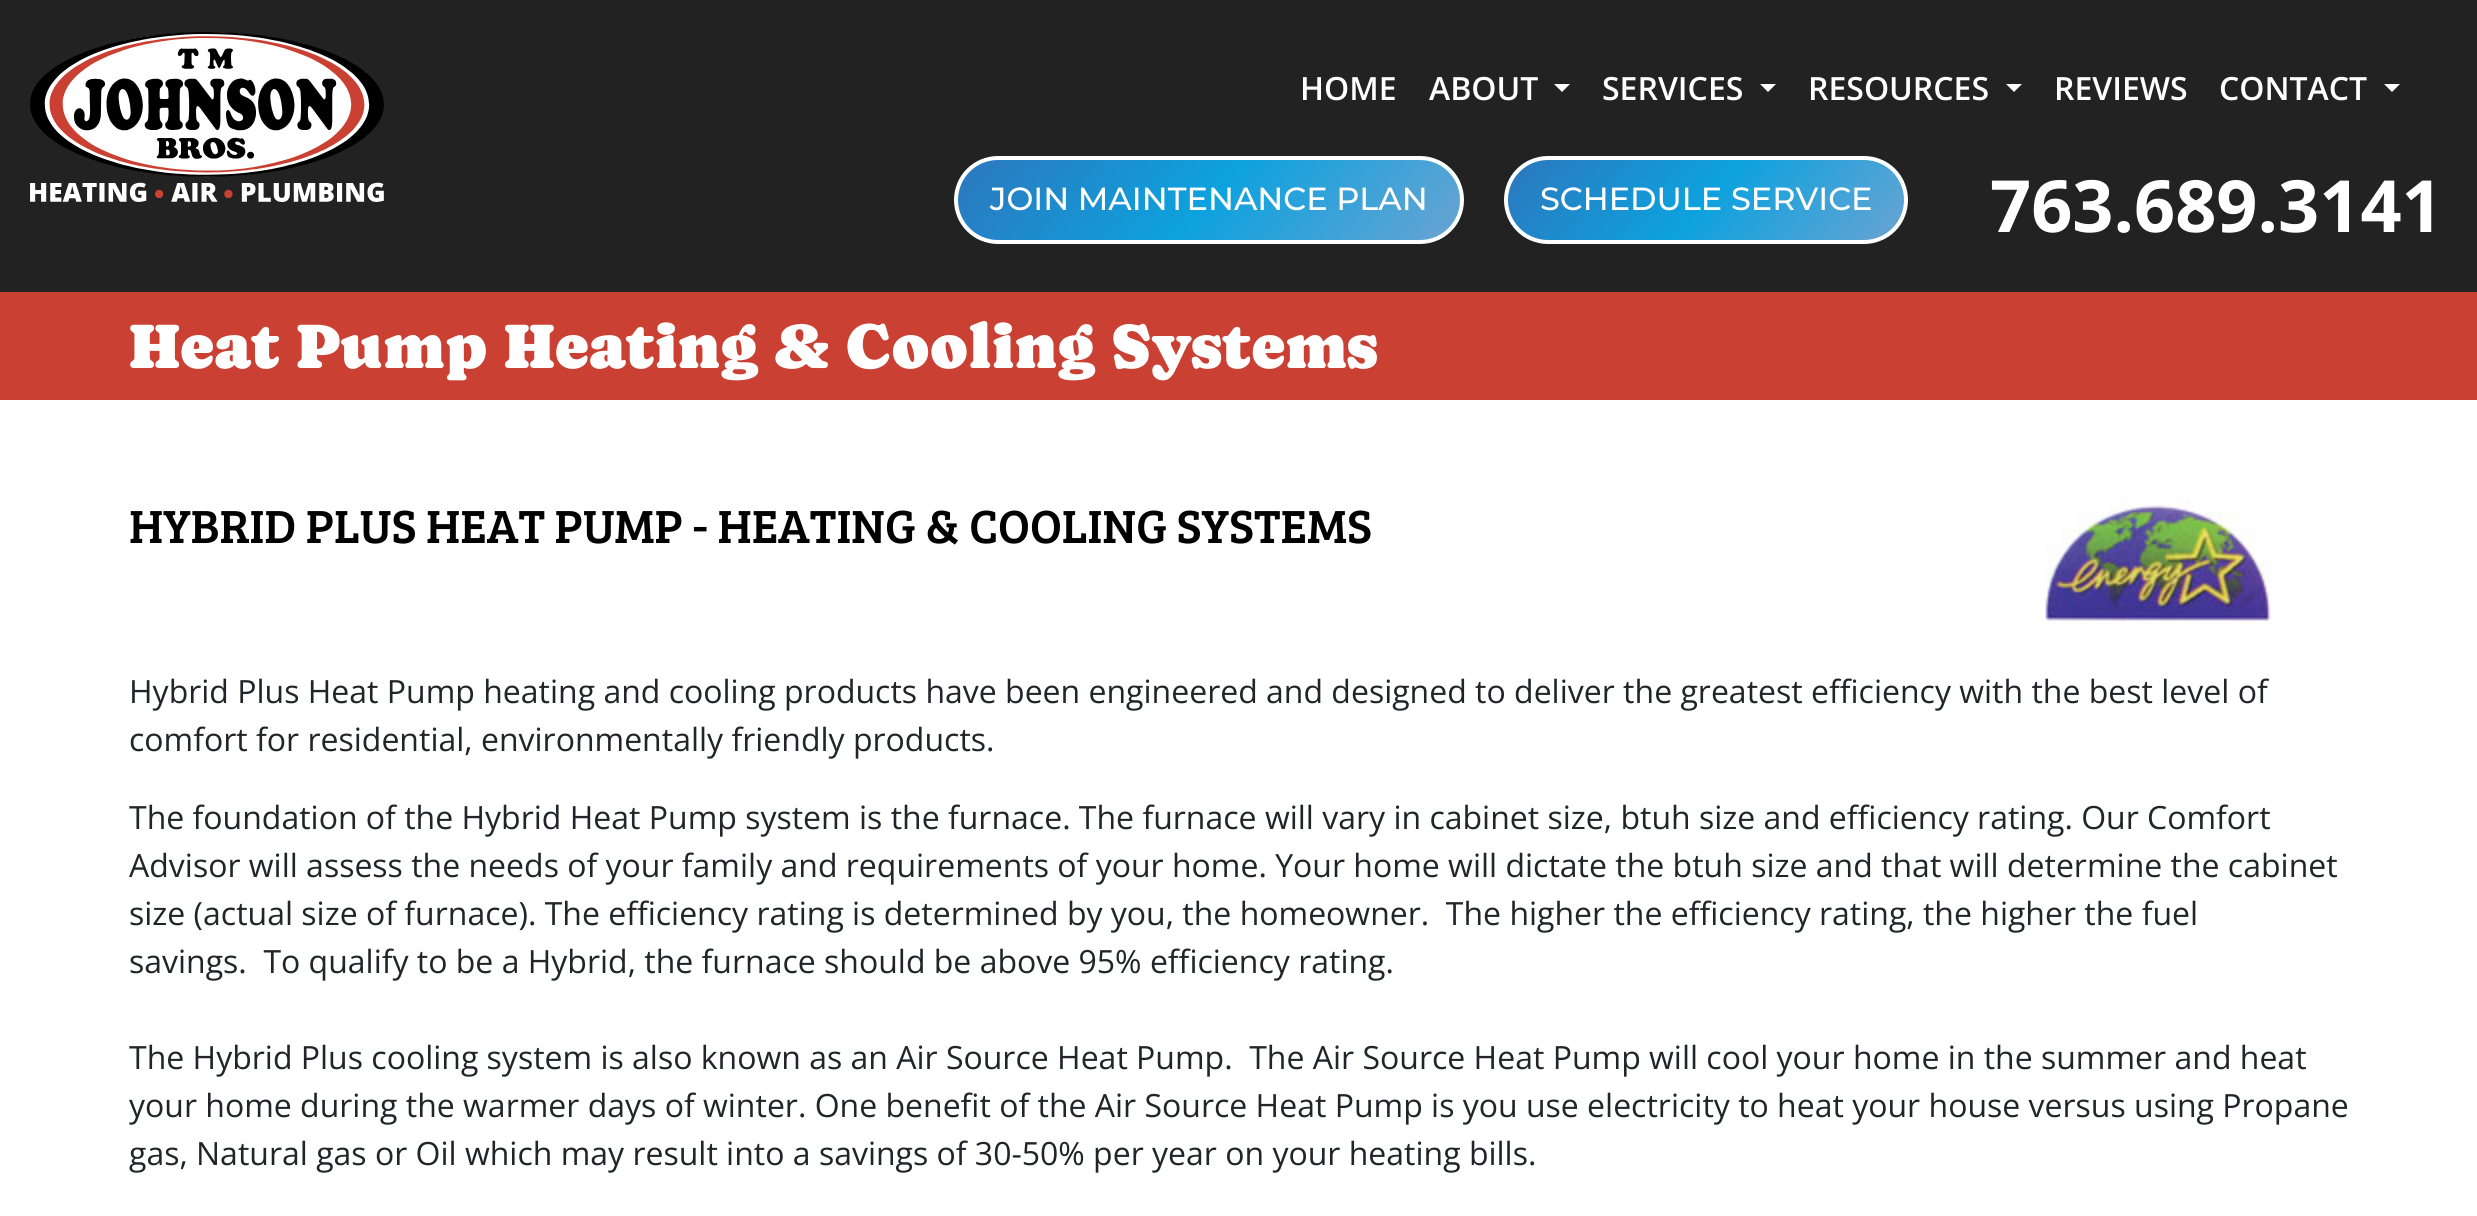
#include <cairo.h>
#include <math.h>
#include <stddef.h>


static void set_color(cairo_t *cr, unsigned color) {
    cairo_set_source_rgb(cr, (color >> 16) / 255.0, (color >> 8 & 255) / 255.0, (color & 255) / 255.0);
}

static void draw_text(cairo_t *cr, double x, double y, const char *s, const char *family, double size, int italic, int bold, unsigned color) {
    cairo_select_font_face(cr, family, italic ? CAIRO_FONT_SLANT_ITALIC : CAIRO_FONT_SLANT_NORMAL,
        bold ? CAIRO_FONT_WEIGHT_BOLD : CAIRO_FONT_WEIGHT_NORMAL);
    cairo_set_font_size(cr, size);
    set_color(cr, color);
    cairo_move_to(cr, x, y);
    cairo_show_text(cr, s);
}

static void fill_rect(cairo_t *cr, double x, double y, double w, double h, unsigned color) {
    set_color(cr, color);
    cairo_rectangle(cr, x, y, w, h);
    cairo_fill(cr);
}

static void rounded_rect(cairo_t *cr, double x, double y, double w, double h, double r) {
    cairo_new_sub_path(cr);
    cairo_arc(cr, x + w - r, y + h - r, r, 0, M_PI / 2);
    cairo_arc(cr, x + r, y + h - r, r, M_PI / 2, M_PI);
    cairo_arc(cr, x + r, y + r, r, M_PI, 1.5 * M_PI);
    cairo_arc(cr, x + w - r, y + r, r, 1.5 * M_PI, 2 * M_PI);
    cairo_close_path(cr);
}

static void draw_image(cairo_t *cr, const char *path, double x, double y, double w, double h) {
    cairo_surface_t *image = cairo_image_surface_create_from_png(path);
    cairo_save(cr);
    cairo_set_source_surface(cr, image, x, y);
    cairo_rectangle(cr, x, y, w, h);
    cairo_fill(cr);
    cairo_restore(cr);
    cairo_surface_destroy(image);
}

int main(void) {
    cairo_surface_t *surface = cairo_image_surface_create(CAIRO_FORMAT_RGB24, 2477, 1216);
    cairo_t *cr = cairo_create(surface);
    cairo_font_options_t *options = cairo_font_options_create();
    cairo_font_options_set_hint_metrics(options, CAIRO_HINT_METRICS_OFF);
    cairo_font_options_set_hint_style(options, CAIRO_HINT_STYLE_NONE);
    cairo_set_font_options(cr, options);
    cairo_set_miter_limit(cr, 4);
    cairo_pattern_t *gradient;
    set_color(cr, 0xFFFFFF);
    cairo_paint(cr);
    fill_rect(cr, 0, 0, 2477, 292, 0x222222);
    draw_image(cr, "assets/img1.png", 30, 32, 354, 170);
    draw_text(cr, 1300, 100, "HOME", "Open Sans SemiBold", 32, 0, 0, 0xFFFFFF);
    draw_text(cr, 1429, 100, "ABOUT", "Open Sans SemiBold", 32, 0, 0, 0xFFFFFF);
    cairo_new_path(cr);
    cairo_move_to(cr, 1554, 84);
    cairo_line_to(cr, 1570, 84);
    cairo_line_to(cr, 1562, 92);
    cairo_close_path(cr);
    cairo_fill(cr);
    draw_text(cr, 1602, 100, "SERVICES", "Open Sans SemiBold", 32, 0, 0, 0xFFFFFF);
    cairo_new_path(cr);
    cairo_move_to(cr, 1760, 84);
    cairo_line_to(cr, 1776, 84);
    cairo_line_to(cr, 1768, 92);
    cairo_close_path(cr);
    cairo_fill(cr);
    draw_text(cr, 1808, 100, "RESOURCES", "Open Sans SemiBold", 32, 0, 0, 0xFFFFFF);
    cairo_new_path(cr);
    cairo_move_to(cr, 2006, 84);
    cairo_line_to(cr, 2022, 84);
    cairo_line_to(cr, 2014, 92);
    cairo_close_path(cr);
    cairo_fill(cr);
    draw_text(cr, 2054, 100, "REVIEWS", "Open Sans SemiBold", 32, 0, 0, 0xFFFFFF);
    draw_text(cr, 2219, 100, "CONTACT", "Open Sans SemiBold", 32, 0, 0, 0xFFFFFF);
    cairo_new_path(cr);
    cairo_move_to(cr, 2384, 84);
    cairo_line_to(cr, 2400, 84);
    cairo_line_to(cr, 2392, 92);
    cairo_close_path(cr);
    cairo_fill(cr);
    cairo_save(cr);
    rounded_rect(cr, 954, 156, 510, 88, 44);
    cairo_clip(cr);
    gradient = cairo_pattern_create_linear(1042, 60, 1376, 340);
    cairo_pattern_add_color_stop_rgba(gradient, 0, 0.176, 0.467, 0.741, 1);
    cairo_pattern_add_color_stop_rgba(gradient, 0.5, 0.051, 0.635, 0.871, 1);
    cairo_pattern_add_color_stop_rgba(gradient, 1, 0.412, 0.639, 0.824, 1);
    cairo_set_source(cr, gradient);
    cairo_pattern_destroy(gradient);
    cairo_rectangle(cr, 958, 160, 502, 80);
    cairo_fill(cr);
    cairo_restore(cr);
    rounded_rect(cr, 956, 158, 506, 84, 42);
    cairo_set_line_width(cr, 4);
    cairo_stroke(cr);
    draw_text(cr, 990, 210, "JOIN MAINTENANCE PLAN", "Montserrat Medium", 32, 0, 0, 0xFFFFFF);
    cairo_save(cr);
    rounded_rect(cr, 1504, 156, 404, 88, 44);
    cairo_clip(cr);
    gradient = cairo_pattern_create_linear(1570, 86, 1842, 314);
    cairo_pattern_add_color_stop_rgba(gradient, 0, 0.176, 0.467, 0.741, 1);
    cairo_pattern_add_color_stop_rgba(gradient, 0.5, 0.051, 0.635, 0.871, 1);
    cairo_pattern_add_color_stop_rgba(gradient, 1, 0.412, 0.639, 0.824, 1);
    cairo_set_source(cr, gradient);
    cairo_pattern_destroy(gradient);
    cairo_rectangle(cr, 1508, 160, 396, 80);
    cairo_fill(cr);
    cairo_restore(cr);
    rounded_rect(cr, 1506, 158, 400, 84, 42);
    cairo_stroke(cr);
    draw_text(cr, 1540, 210, "SCHEDULE SERVICE", "Montserrat Medium", 32, 0, 0, 0xFFFFFF);
    draw_text(cr, 1990, 232, "763.689.3141", "Open Sans", 72, 0, 1, 0xFFFFFF);
    fill_rect(cr, 0, 292, 2477, 108, 0xCA4134);
    draw_text(cr, 129, 368, "Heat Pump Heating & Cooling Systems", "Caprasimo", 64, 0, 0, 0xFFFFFF);
    draw_text(cr, 129, 543, "HYBRID PLUS HEAT PUMP - HEATING & COOLING SYSTEMS", "Bree Serif", 48, 0, 0, 0x000000);
    draw_image(cr, "assets/img2.png", 2045, 498, 226, 127);
    draw_text(cr, 129, 703, "Hybrid Plus Heat Pump heating and cooling products have been engineered and designed to deliver the greatest efficiency with the best level of", "Open Sans", 32, 0, 0, 0x212529);
    draw_text(cr, 129, 751, "comfort for residential, environmentally friendly products.", "Open Sans", 32, 0, 0, 0x212529);
    draw_text(cr, 129, 829, "The foundation of the Hybrid Heat Pump system is the furnace. The furnace will vary in cabinet size, btuh size and efficiency rating. Our Comfort", "Open Sans", 32, 0, 0, 0x212529);
    draw_text(cr, 129, 877, "Advisor will assess the needs of your family and requirements of your home. Your home will dictate the btuh size and that will determine the cabinet", "Open Sans", 32, 0, 0, 0x212529);
    draw_text(cr, 129, 925, "size (actual size of furnace). The efficiency rating is determined by you, the homeowner.  The higher the efficiency rating, the higher the fuel", "Open Sans", 32, 0, 0, 0x212529);
    draw_text(cr, 129, 973, "savings.  To qualify to be a Hybrid, the furnace should be above 95% efficiency rating.", "Open Sans", 32, 0, 0, 0x212529);
    draw_text(cr, 129, 1069, "The Hybrid Plus cooling system is also known as an Air Source Heat Pump.  The Air Source Heat Pump will cool your home in the summer and heat", "Open Sans", 32, 0, 0, 0x212529);
    draw_text(cr, 129, 1117, "your home during the warmer days of winter. One benefit of the Air Source Heat Pump is you use electricity to heat your house versus using Propane", "Open Sans", 32, 0, 0, 0x212529);
    draw_text(cr, 129, 1165, "gas, Natural gas or Oil which may result into a savings of 30-50% per year on your heating bills.", "Open Sans", 32, 0, 0, 0x212529);
    cairo_surface_write_to_png(surface, "output.png");
    cairo_font_options_destroy(options);
    cairo_destroy(cr);
    cairo_surface_destroy(surface);
    return 0;
}
